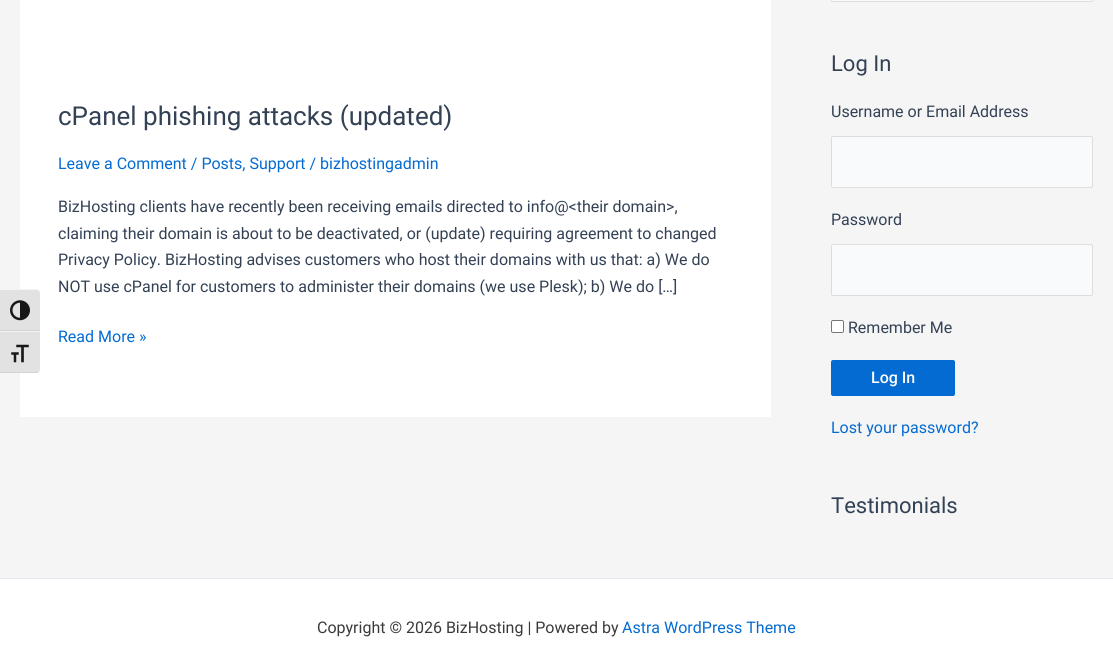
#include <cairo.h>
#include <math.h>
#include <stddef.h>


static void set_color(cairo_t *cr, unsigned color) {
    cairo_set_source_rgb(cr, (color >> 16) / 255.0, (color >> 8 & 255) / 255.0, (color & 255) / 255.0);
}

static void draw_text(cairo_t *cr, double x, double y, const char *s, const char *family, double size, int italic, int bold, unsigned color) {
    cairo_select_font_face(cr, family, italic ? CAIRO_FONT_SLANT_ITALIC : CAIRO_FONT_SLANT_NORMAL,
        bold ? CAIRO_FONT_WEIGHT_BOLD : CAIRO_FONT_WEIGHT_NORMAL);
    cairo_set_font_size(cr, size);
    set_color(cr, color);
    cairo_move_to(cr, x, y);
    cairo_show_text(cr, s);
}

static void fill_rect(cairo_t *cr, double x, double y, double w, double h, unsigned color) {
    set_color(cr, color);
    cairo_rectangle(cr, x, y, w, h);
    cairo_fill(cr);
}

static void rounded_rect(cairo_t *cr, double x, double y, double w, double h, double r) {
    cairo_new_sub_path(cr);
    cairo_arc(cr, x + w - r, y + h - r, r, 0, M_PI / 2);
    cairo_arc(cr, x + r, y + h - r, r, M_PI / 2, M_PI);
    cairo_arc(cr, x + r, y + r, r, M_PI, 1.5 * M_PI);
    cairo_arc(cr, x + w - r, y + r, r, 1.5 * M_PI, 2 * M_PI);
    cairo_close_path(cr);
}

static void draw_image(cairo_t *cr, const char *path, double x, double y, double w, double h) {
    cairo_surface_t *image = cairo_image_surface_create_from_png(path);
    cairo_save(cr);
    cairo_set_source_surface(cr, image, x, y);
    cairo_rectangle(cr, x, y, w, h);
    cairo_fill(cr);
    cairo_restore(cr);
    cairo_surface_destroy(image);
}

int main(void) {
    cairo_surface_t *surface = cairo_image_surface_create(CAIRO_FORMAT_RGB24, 1113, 671);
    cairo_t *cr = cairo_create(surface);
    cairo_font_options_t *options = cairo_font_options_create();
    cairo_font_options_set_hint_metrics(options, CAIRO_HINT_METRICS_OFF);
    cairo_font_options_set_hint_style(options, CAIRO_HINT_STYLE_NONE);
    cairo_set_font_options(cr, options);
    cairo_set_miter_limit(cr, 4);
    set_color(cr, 0xF5F5F5);
    cairo_paint(cr);
    fill_rect(cr, 20, 0, 751, 417, 0xFFFFFF);
    set_color(cr, 0xE2E2E2);
    cairo_new_path(cr);
    cairo_move_to(cr, 0, 289);
    cairo_line_to(cr, 36, 289);
    cairo_curve_to(cr, 38, 289, 40, 291, 40, 293);
    cairo_line_to(cr, 40, 331);
    cairo_line_to(cr, 0, 331);
    cairo_close_path(cr);
    cairo_fill(cr);
    set_color(cr, 0xF5F5F5);
    cairo_new_path(cr);
    cairo_move_to(cr, 0, 289);
    cairo_line_to(cr, 0, 290);
    cairo_line_to(cr, 36, 290);
    cairo_curve_to(cr, 38, 290, 40, 291, 40, 293);
    cairo_curve_to(cr, 40, 291, 38, 289, 36, 289);
    cairo_close_path(cr);
    cairo_fill(cr);
    fill_rect(cr, 0, 330, 40, 1, 0xD2D2D2);
    draw_image(cr, "assets/img1.png", 10, 300, 20, 21);
    set_color(cr, 0xE2E2E2);
    cairo_new_path(cr);
    cairo_move_to(cr, 0, 331);
    cairo_line_to(cr, 40, 331);
    cairo_line_to(cr, 40, 369);
    cairo_curve_to(cr, 40, 371, 38, 373, 36, 373);
    cairo_line_to(cr, 0, 373);
    cairo_close_path(cr);
    cairo_fill(cr);
    fill_rect(cr, 0, 331, 40, 1, 0xF5F5F5);
    set_color(cr, 0xD2D2D2);
    cairo_new_path(cr);
    cairo_move_to(cr, 0, 372);
    cairo_line_to(cr, 0, 373);
    cairo_line_to(cr, 36, 373);
    cairo_curve_to(cr, 38, 373, 40, 371, 40, 369);
    cairo_curve_to(cr, 40, 371, 38, 372, 36, 372);
    cairo_close_path(cr);
    cairo_fill(cr);
    draw_image(cr, "assets/img2.png", 11, 344, 18, 19);
    draw_text(cr, 58, 125, "cPanel phishing attacks (updated)", "Roboto", 26, 0, 0, 0x334155);
    draw_text(cr, 58, 169, "Leave a Comment / Posts, Support / bizhostingadmin", "Roboto", 16, 0, 0, 0x046BD2);
    draw_text(cr, 58, 212, "BizHosting clients have recently been receiving emails directed to info@<their domain>,", "Roboto", 16, 0, 0, 0x334155);
    draw_text(cr, 58, 239, "claiming their domain is about to be deactivated, or (update) requiring agreement to changed", "Roboto", 16, 0, 0, 0x334155);
    draw_text(cr, 58, 265, "Privacy Policy. BizHosting advises customers who host their domains with us that: a) We do", "Roboto", 16, 0, 0, 0x334155);
    draw_text(cr, 58, 292, "NOT use cPanel for customers to administer their domains (we use Plesk); b) We do […]", "Roboto", 16, 0, 0, 0x334155);
    draw_text(cr, 58, 342, "Read More »", "Roboto", 16, 0, 0, 0x046BD2);
    set_color(cr, 0xFAFAFA);
    rounded_rect(cr, 831.5, -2.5, 261, 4, 1.5);
    cairo_fill_preserve(cr);
    set_color(cr, 0xDDDDDD);
    cairo_set_line_width(cr, 1);
    cairo_stroke(cr);
    draw_text(cr, 831, 71, "Log In", "Roboto", 22, 0, 0, 0x334155);
    draw_text(cr, 831, 117, "Username or Email Address", "Roboto", 16, 0, 0, 0x334155);
    set_color(cr, 0xF9FAFB);
    rounded_rect(cr, 831.5, 136.5, 261, 51, 1.5);
    cairo_fill_preserve(cr);
    set_color(cr, 0xDDDDDD);
    cairo_stroke(cr);
    draw_text(cr, 831, 225, "Password", "Roboto", 16, 0, 0, 0x334155);
    set_color(cr, 0xF9FAFB);
    rounded_rect(cr, 831.5, 244.5, 261, 51, 1.5);
    cairo_fill_preserve(cr);
    set_color(cr, 0xDDDDDD);
    cairo_stroke(cr);
    set_color(cr, 0xFFFFFF);
    rounded_rect(cr, 831.5, 320.5, 12, 12, 1.5);
    cairo_fill_preserve(cr);
    set_color(cr, 0x767676);
    cairo_stroke(cr);
    draw_text(cr, 848, 333, "Remember Me", "Roboto", 16, 0, 0, 0x334155);
    set_color(cr, 0x046BD2);
    rounded_rect(cr, 831, 360, 124, 36, 2);
    cairo_fill(cr);
    draw_text(cr, 871, 383, "Log In", "Roboto Medium", 16, 0, 0, 0xFFFFFF);
    draw_text(cr, 831, 433, "Lost your password?", "Roboto", 16, 0, 0, 0x046BD2);
    draw_text(cr, 831, 513, "Testimonials", "Roboto", 22, 0, 0, 0x334155);
    fill_rect(cr, 0, 579, 1113, 92, 0xFFFFFF);
    fill_rect(cr, 0, 578, 1113, 1, 0xE2E8F0);
    draw_text(cr, 317, 633, "Copyright © 2026 BizHosting | Powered by", "Roboto", 16, 0, 0, 0x3A3A3A);
    draw_text(cr, 622, 633, "Astra WordPress Theme", "Roboto", 16, 0, 0, 0x046BD2);
    cairo_surface_write_to_png(surface, "output.png");
    cairo_font_options_destroy(options);
    cairo_destroy(cr);
    cairo_surface_destroy(surface);
    return 0;
}
